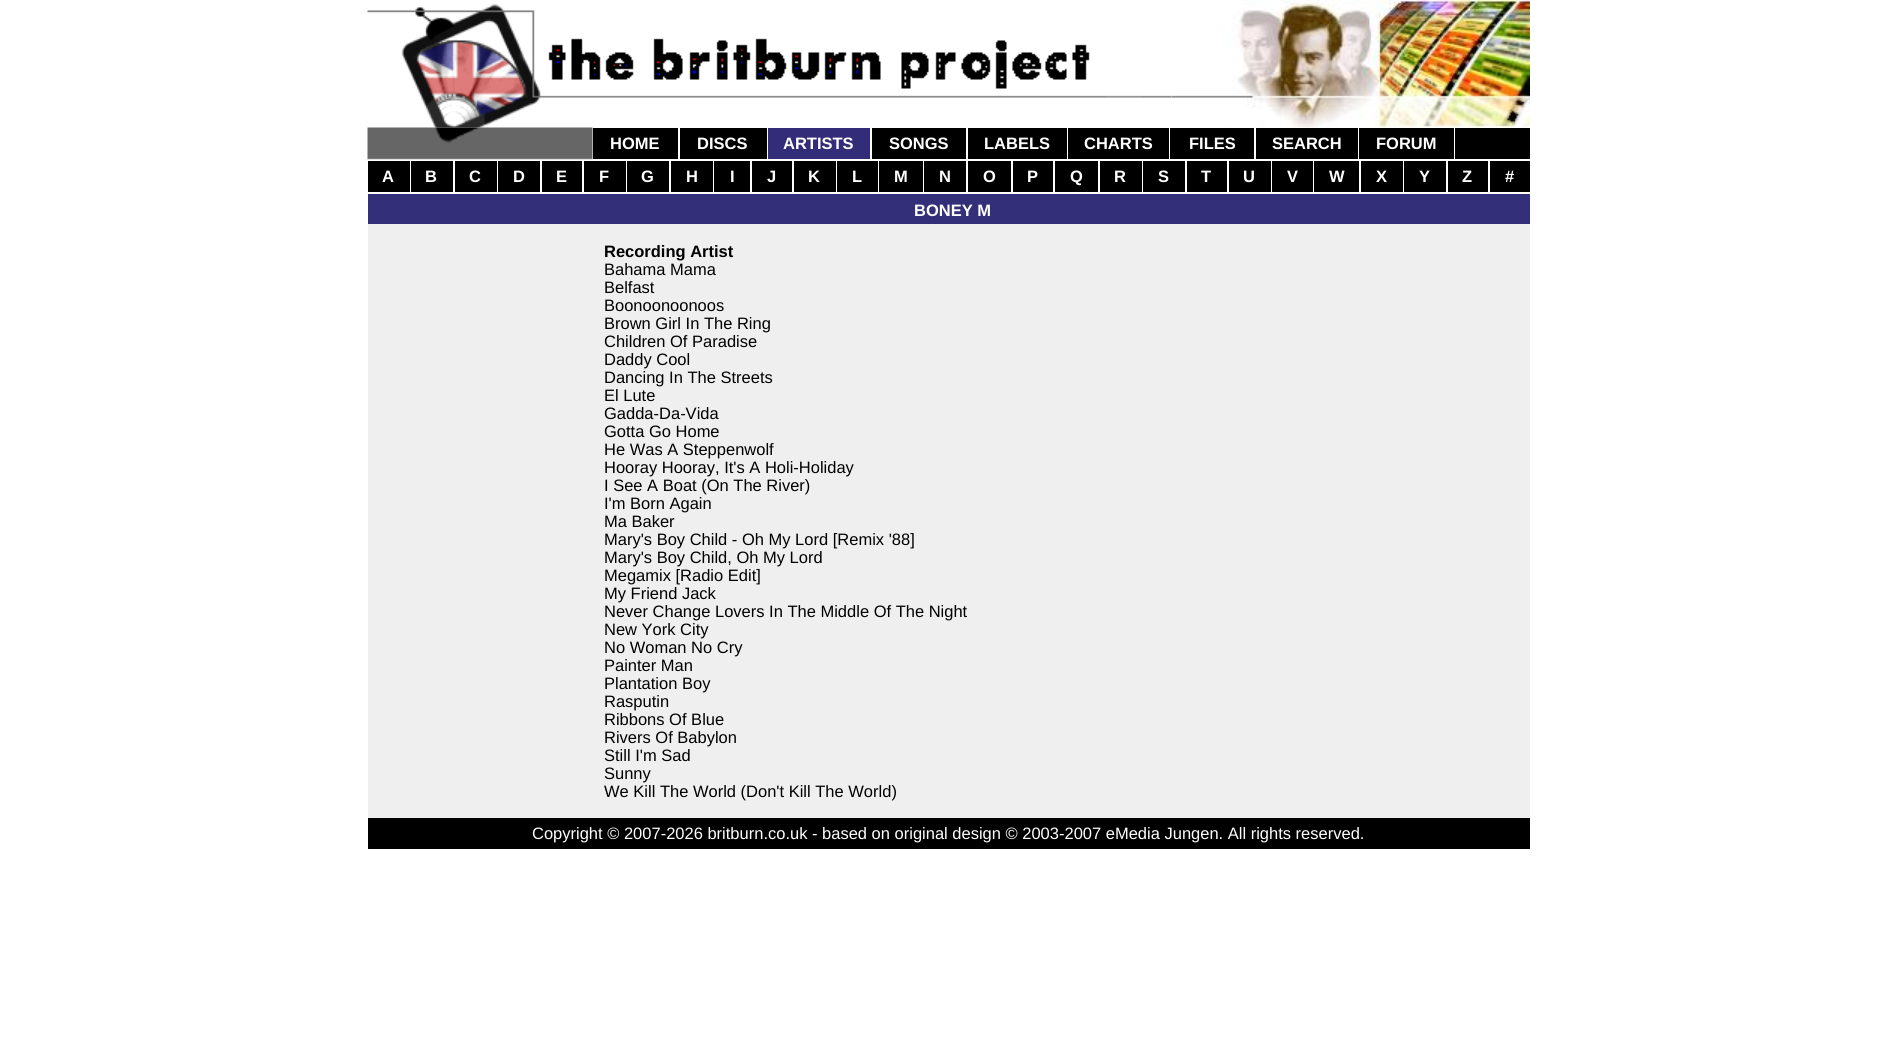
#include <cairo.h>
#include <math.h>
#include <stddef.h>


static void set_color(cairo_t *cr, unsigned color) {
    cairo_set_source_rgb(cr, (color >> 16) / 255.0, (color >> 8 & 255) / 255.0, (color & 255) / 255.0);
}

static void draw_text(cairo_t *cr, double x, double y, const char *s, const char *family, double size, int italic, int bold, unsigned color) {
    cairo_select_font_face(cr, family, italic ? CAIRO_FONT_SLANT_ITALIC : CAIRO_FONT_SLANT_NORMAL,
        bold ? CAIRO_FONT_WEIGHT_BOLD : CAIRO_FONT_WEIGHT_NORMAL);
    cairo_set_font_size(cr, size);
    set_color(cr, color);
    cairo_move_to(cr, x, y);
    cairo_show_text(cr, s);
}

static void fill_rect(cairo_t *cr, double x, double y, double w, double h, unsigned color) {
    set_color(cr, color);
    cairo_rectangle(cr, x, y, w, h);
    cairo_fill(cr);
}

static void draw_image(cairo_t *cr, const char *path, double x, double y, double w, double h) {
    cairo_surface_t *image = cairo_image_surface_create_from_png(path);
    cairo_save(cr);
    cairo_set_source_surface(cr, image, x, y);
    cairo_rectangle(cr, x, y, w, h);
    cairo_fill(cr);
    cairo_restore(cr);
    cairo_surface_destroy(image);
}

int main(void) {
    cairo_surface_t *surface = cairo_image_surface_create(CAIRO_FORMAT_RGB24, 1895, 1059);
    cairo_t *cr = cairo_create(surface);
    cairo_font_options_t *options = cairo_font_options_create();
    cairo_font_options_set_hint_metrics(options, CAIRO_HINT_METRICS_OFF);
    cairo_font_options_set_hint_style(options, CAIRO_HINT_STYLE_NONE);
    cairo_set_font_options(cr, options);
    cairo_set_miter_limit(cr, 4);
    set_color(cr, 0xFFFFFF);
    cairo_paint(cr);
    draw_image(cr, "assets/img1.png", 367, 4, 805, 124);
    draw_image(cr, "assets/img2.png", 1171, 0, 359, 128);
    draw_image(cr, "assets/img3.png", 367, 127, 226, 33);
    fill_rect(cr, 593, 128, 85, 31, 0x000000);
    draw_text(cr, 610, 149, "HOME", "Liberation Sans", 16.5, 0, 1, 0xFFFFFF);
    fill_rect(cr, 680, 128, 87, 31, 0x000000);
    draw_text(cr, 697, 149, "DISCS", "Liberation Sans", 16.5, 0, 1, 0xFFFFFF);
    fill_rect(cr, 768, 128, 102, 31, 0x332C79);
    draw_text(cr, 783, 149, "ARTISTS", "Liberation Sans", 16.5, 0, 1, 0xFFFFFF);
    fill_rect(cr, 872, 128, 94, 31, 0x000000);
    draw_text(cr, 889, 149, "SONGS", "Liberation Sans", 16.5, 0, 1, 0xFFFFFF);
    fill_rect(cr, 968, 128, 99, 31, 0x000000);
    draw_text(cr, 984, 149, "LABELS", "Liberation Sans", 16.5, 0, 1, 0xFFFFFF);
    fill_rect(cr, 1068, 128, 101, 31, 0x000000);
    draw_text(cr, 1084, 149, "CHARTS", "Liberation Sans", 16.5, 0, 1, 0xFFFFFF);
    fill_rect(cr, 1170, 128, 84, 31, 0x000000);
    draw_text(cr, 1189, 149, "FILES", "Liberation Sans", 16.5, 0, 1, 0xFFFFFF);
    fill_rect(cr, 1256, 128, 102, 31, 0x000000);
    draw_text(cr, 1272, 149, "SEARCH", "Liberation Sans", 16.5, 0, 1, 0xFFFFFF);
    fill_rect(cr, 1359, 128, 95, 31, 0x000000);
    draw_text(cr, 1376, 149, "FORUM", "Liberation Sans", 16.5, 0, 1, 0xFFFFFF);
    fill_rect(cr, 1455, 128, 75, 31, 0x000000);
    fill_rect(cr, 368, 161, 42, 31, 0x000000);
    draw_text(cr, 382, 182, "A", "Liberation Sans", 16.5, 0, 1, 0xFFFFFF);
    fill_rect(cr, 411, 161, 42, 31, 0x000000);
    draw_text(cr, 425, 182, "B", "Liberation Sans", 16.5, 0, 1, 0xFFFFFF);
    fill_rect(cr, 455, 161, 42, 31, 0x000000);
    draw_text(cr, 469, 182, "C", "Liberation Sans", 16.5, 0, 1, 0xFFFFFF);
    fill_rect(cr, 498, 161, 42, 31, 0x000000);
    draw_text(cr, 513, 182, "D", "Liberation Sans", 16.5, 0, 1, 0xFFFFFF);
    fill_rect(cr, 542, 161, 40, 31, 0x000000);
    draw_text(cr, 556, 182, "E", "Liberation Sans", 16.5, 0, 1, 0xFFFFFF);
    fill_rect(cr, 584, 161, 42, 31, 0x000000);
    draw_text(cr, 599, 182, "F", "Liberation Sans", 16.5, 0, 1, 0xFFFFFF);
    fill_rect(cr, 627, 161, 42, 31, 0x000000);
    draw_text(cr, 641, 182, "G", "Liberation Sans", 16.5, 0, 1, 0xFFFFFF);
    fill_rect(cr, 671, 161, 42, 31, 0x000000);
    draw_text(cr, 686, 182, "H", "Liberation Sans", 16.5, 0, 1, 0xFFFFFF);
    fill_rect(cr, 714, 161, 36, 31, 0x000000);
    draw_text(cr, 730, 182, "I", "Liberation Sans", 16.5, 0, 1, 0xFFFFFF);
    fill_rect(cr, 752, 161, 40, 31, 0x000000);
    draw_text(cr, 767, 182, "J", "Liberation Sans", 16.5, 0, 1, 0xFFFFFF);
    fill_rect(cr, 794, 161, 42, 31, 0x000000);
    draw_text(cr, 808, 182, "K", "Liberation Sans", 16.5, 0, 1, 0xFFFFFF);
    fill_rect(cr, 837, 161, 41, 31, 0x000000);
    draw_text(cr, 852, 182, "L", "Liberation Sans", 16.5, 0, 1, 0xFFFFFF);
    fill_rect(cr, 879, 161, 44, 31, 0x000000);
    draw_text(cr, 894, 182, "M", "Liberation Sans", 16.5, 0, 1, 0xFFFFFF);
    fill_rect(cr, 924, 161, 42, 31, 0x000000);
    draw_text(cr, 939, 182, "N", "Liberation Sans", 16.5, 0, 1, 0xFFFFFF);
    fill_rect(cr, 968, 161, 43, 31, 0x000000);
    draw_text(cr, 983, 182, "O", "Liberation Sans", 16.5, 0, 1, 0xFFFFFF);
    fill_rect(cr, 1013, 161, 40, 31, 0x000000);
    draw_text(cr, 1027, 182, "P", "Liberation Sans", 16.5, 0, 1, 0xFFFFFF);
    fill_rect(cr, 1055, 161, 43, 31, 0x000000);
    draw_text(cr, 1070, 182, "Q", "Liberation Sans", 16.5, 0, 1, 0xFFFFFF);
    fill_rect(cr, 1100, 161, 42, 31, 0x000000);
    draw_text(cr, 1114, 182, "R", "Liberation Sans", 16.5, 0, 1, 0xFFFFFF);
    fill_rect(cr, 1143, 161, 42, 31, 0x000000);
    draw_text(cr, 1158, 182, "S", "Liberation Sans", 16.5, 0, 1, 0xFFFFFF);
    fill_rect(cr, 1187, 161, 40, 31, 0x000000);
    draw_text(cr, 1201, 182, "T", "Liberation Sans", 16.5, 0, 1, 0xFFFFFF);
    fill_rect(cr, 1229, 161, 42, 31, 0x000000);
    draw_text(cr, 1243, 182, "U", "Liberation Sans", 16.5, 0, 1, 0xFFFFFF);
    fill_rect(cr, 1272, 161, 41, 31, 0x000000);
    draw_text(cr, 1287, 182, "V", "Liberation Sans", 16.5, 0, 1, 0xFFFFFF);
    fill_rect(cr, 1314, 161, 45, 31, 0x000000);
    draw_text(cr, 1329, 182, "W", "Liberation Sans", 16.5, 0, 1, 0xFFFFFF);
    fill_rect(cr, 1361, 161, 42, 31, 0x000000);
    draw_text(cr, 1376, 182, "X", "Liberation Sans", 16.5, 0, 1, 0xFFFFFF);
    fill_rect(cr, 1404, 161, 42, 31, 0x000000);
    draw_text(cr, 1419, 182, "Y", "Liberation Sans", 16.5, 0, 1, 0xFFFFFF);
    fill_rect(cr, 1448, 161, 40, 31, 0x000000);
    draw_text(cr, 1462, 182, "Z", "Liberation Sans", 16.5, 0, 1, 0xFFFFFF);
    fill_rect(cr, 1490, 161, 40, 31, 0x000000);
    draw_text(cr, 1505, 182, "#", "Liberation Sans", 16.5, 0, 1, 0xFFFFFF);
    fill_rect(cr, 368, 194, 1162, 30, 0x332F79);
    draw_text(cr, 914, 216, "BONEY M", "Liberation Sans", 16.5, 0, 1, 0xFFFFFF);
    fill_rect(cr, 368, 224, 1162, 576, 0xEFEFEF);
    draw_text(cr, 604, 257, "Recording Artist", "Liberation Sans", 16.5, 0, 1, 0x000000);
    draw_text(cr, 604, 275, "Bahama Mama", "Liberation Sans", 16.5, 0, 0, 0x000000);
    draw_text(cr, 604, 293, "Belfast", "Liberation Sans", 16.5, 0, 0, 0x000000);
    draw_text(cr, 604, 311, "Boonoonoonoos", "Liberation Sans", 16.5, 0, 0, 0x000000);
    draw_text(cr, 604, 329, "Brown Girl In The Ring", "Liberation Sans", 16.5, 0, 0, 0x000000);
    draw_text(cr, 604, 347, "Children Of Paradise", "Liberation Sans", 16.5, 0, 0, 0x000000);
    draw_text(cr, 604, 365, "Daddy Cool", "Liberation Sans", 16.5, 0, 0, 0x000000);
    draw_text(cr, 604, 383, "Dancing In The Streets", "Liberation Sans", 16.5, 0, 0, 0x000000);
    draw_text(cr, 604, 401, "El Lute", "Liberation Sans", 16.5, 0, 0, 0x000000);
    draw_text(cr, 604, 419, "Gadda-Da-Vida", "Liberation Sans", 16.5, 0, 0, 0x000000);
    draw_text(cr, 604, 437, "Gotta Go Home", "Liberation Sans", 16.5, 0, 0, 0x000000);
    draw_text(cr, 604, 455, "He Was A Steppenwolf", "Liberation Sans", 16.5, 0, 0, 0x000000);
    draw_text(cr, 604, 473, "Hooray Hooray, It's A Holi-Holiday", "Liberation Sans", 16.5, 0, 0, 0x000000);
    draw_text(cr, 604, 491, "I See A Boat (On The River)", "Liberation Sans", 16.5, 0, 0, 0x000000);
    draw_text(cr, 604, 509, "I'm Born Again", "Liberation Sans", 16.5, 0, 0, 0x000000);
    draw_text(cr, 604, 527, "Ma Baker", "Liberation Sans", 16.5, 0, 0, 0x000000);
    draw_text(cr, 604, 545, "Mary's Boy Child - Oh My Lord [Remix '88]", "Liberation Sans", 16.5, 0, 0, 0x000000);
    draw_text(cr, 604, 563, "Mary's Boy Child, Oh My Lord", "Liberation Sans", 16.5, 0, 0, 0x000000);
    draw_text(cr, 604, 581, "Megamix [Radio Edit]", "Liberation Sans", 16.5, 0, 0, 0x000000);
    draw_text(cr, 604, 599, "My Friend Jack", "Liberation Sans", 16.5, 0, 0, 0x000000);
    draw_text(cr, 604, 617, "Never Change Lovers In The Middle Of The Night", "Liberation Sans", 16.5, 0, 0, 0x000000);
    draw_text(cr, 604, 635, "New York City", "Liberation Sans", 16.5, 0, 0, 0x000000);
    draw_text(cr, 604, 653, "No Woman No Cry", "Liberation Sans", 16.5, 0, 0, 0x000000);
    draw_text(cr, 604, 671, "Painter Man", "Liberation Sans", 16.5, 0, 0, 0x000000);
    draw_text(cr, 604, 689, "Plantation Boy", "Liberation Sans", 16.5, 0, 0, 0x000000);
    draw_text(cr, 604, 707, "Rasputin", "Liberation Sans", 16.5, 0, 0, 0x000000);
    draw_text(cr, 604, 725, "Ribbons Of Blue", "Liberation Sans", 16.5, 0, 0, 0x000000);
    draw_text(cr, 604, 743, "Rivers Of Babylon", "Liberation Sans", 16.5, 0, 0, 0x000000);
    draw_text(cr, 604, 761, "Still I'm Sad", "Liberation Sans", 16.5, 0, 0, 0x000000);
    draw_text(cr, 604, 779, "Sunny", "Liberation Sans", 16.5, 0, 0, 0x000000);
    fill_rect(cr, 368, 800, 1162, 18, 0xEFEFEF);
    draw_text(cr, 604, 797, "We Kill The World (Don't Kill The World)", "Liberation Sans", 16.5, 0, 0, 0x000000);
    fill_rect(cr, 368, 818, 1162, 31, 0x000000);
    draw_text(cr, 532, 839, "Copyright © 2007-2026 britburn.co.uk - based on original design © 2003-2007 eMedia Jungen. All rights reserved.", "Liberation Sans", 16.5, 0, 0, 0xFFFFFF);
    cairo_surface_write_to_png(surface, "output.png");
    cairo_font_options_destroy(options);
    cairo_destroy(cr);
    cairo_surface_destroy(surface);
    return 0;
}
